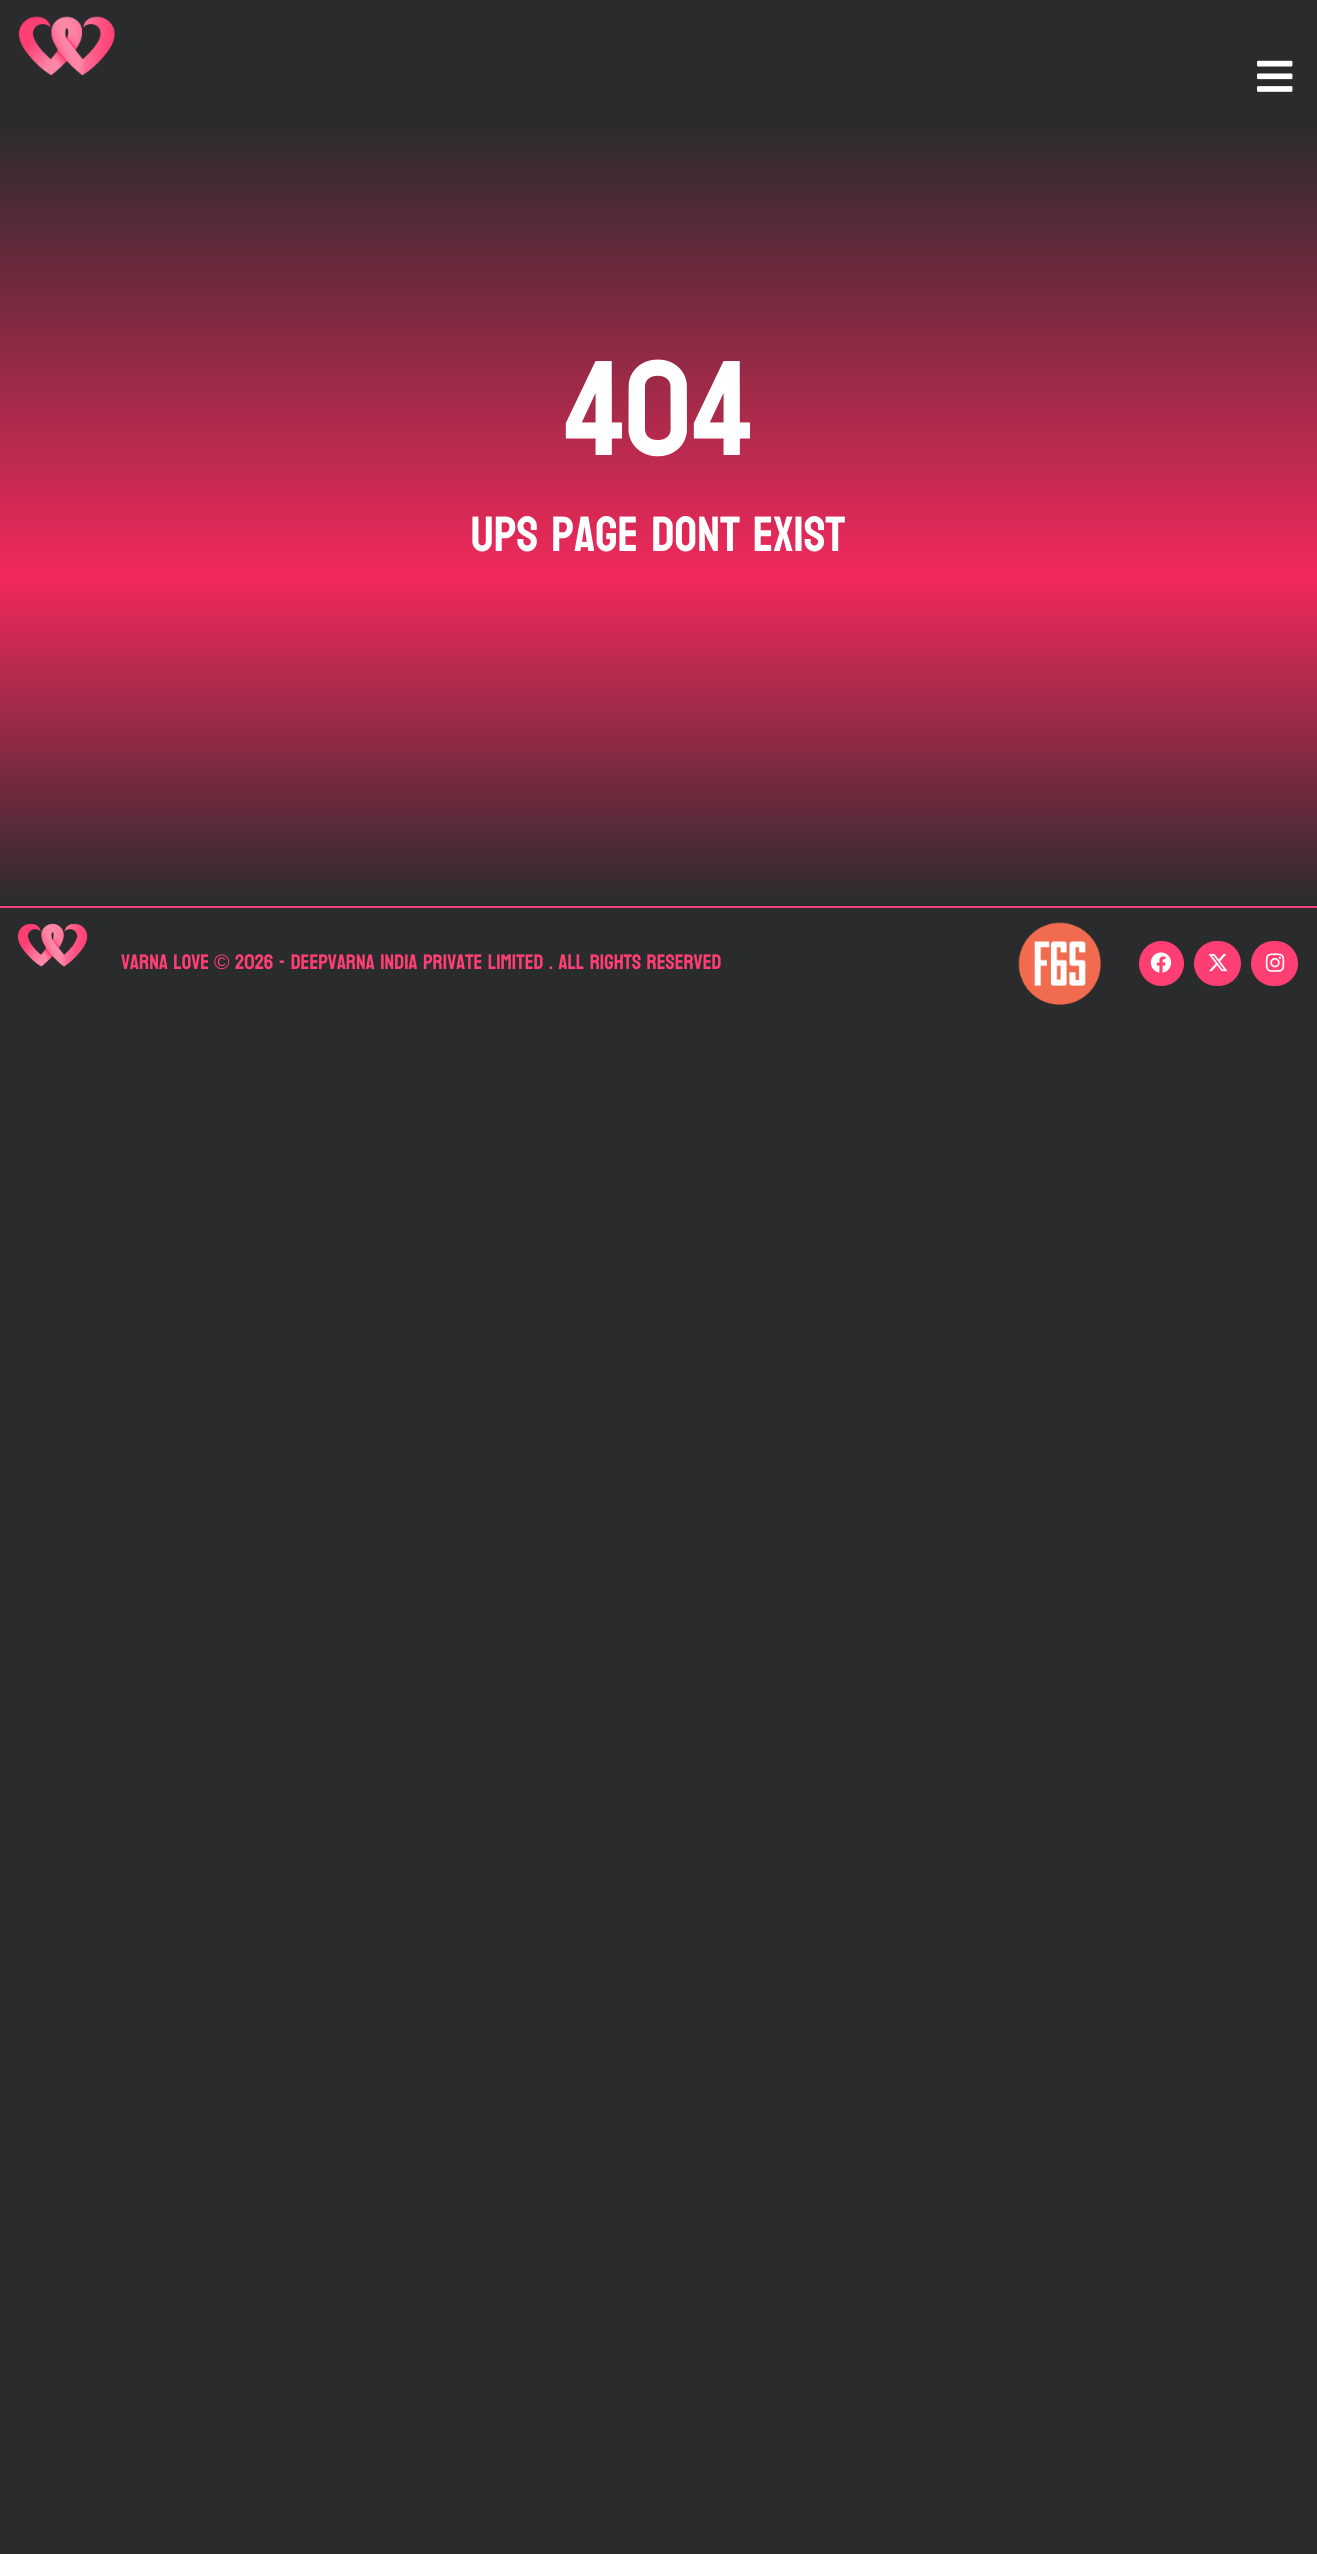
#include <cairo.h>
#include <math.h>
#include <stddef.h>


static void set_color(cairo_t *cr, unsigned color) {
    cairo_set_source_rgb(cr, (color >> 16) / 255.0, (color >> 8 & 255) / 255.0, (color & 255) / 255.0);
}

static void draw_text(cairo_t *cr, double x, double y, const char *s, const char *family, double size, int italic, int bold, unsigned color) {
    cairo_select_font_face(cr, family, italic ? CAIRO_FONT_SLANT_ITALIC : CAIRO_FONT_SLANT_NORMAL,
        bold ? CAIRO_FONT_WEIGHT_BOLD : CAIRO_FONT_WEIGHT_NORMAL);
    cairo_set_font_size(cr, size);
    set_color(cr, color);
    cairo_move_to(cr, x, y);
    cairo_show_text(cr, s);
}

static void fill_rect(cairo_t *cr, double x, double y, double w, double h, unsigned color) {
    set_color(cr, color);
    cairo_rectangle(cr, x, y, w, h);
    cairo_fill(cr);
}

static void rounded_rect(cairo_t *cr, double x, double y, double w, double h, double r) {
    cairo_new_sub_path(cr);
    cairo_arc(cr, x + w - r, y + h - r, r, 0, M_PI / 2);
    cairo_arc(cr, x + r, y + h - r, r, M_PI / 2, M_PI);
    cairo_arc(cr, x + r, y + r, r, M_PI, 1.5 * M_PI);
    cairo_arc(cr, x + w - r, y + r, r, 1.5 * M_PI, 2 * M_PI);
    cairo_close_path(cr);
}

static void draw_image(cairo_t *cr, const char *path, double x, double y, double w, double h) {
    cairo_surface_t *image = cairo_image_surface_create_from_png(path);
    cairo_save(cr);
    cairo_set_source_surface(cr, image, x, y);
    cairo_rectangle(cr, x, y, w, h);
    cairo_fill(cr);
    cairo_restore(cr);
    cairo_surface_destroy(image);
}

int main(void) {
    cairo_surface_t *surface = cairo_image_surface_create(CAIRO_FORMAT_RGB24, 1317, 2554);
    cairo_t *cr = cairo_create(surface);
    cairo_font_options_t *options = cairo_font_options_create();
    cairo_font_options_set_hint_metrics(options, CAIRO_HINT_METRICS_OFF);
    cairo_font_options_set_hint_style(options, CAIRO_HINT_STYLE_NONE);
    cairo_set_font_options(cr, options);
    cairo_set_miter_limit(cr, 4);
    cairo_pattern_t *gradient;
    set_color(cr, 0x292B2D);
    cairo_paint(cr);
    draw_image(cr, "assets/img1.png", 18, 16, 98, 60);
    draw_image(cr, "assets/img2.png", 1257, 60, 36, 32);
    gradient = cairo_pattern_create_linear(659, 121, 659, 576);
    cairo_pattern_add_color_stop_rgba(gradient, 0, 0.161, 0.169, 0.176, 1);
    cairo_pattern_add_color_stop_rgba(gradient, 1, 0.949, 0.161, 0.357, 1);
    cairo_set_source(cr, gradient);
    cairo_pattern_destroy(gradient);
    cairo_rectangle(cr, 0, 127, 1317, 449);
    cairo_fill(cr);
    draw_text(cr, 564, 455, "404", "Bayon", 135, 0, 0, 0xFFFFFF);
    draw_text(cr, 471, 551, "ups page dont exist", "Bayon", 49.5, 0, 0, 0xFFFFFF);
    gradient = cairo_pattern_create_linear(659, 576, 659, 906);
    cairo_pattern_add_color_stop_rgba(gradient, 0, 0.949, 0.161, 0.357, 1);
    cairo_pattern_add_color_stop_rgba(gradient, 1, 0.161, 0.169, 0.176, 1);
    cairo_set_source(cr, gradient);
    cairo_pattern_destroy(gradient);
    cairo_rectangle(cr, 0, 576, 1317, 326);
    cairo_fill(cr);
    fill_rect(cr, 0, 906, 1317, 2, 0xFF3E73);
    draw_image(cr, "assets/img3.png", 17, 923, 71, 44);
    draw_text(cr, 121, 969, "Varna Love", "Bayon", 21, 0, 0, 0xFF3E73);
    draw_text(cr, 214, 969, "©", "Liberation Sans", 21, 0, 0, 0xFF3E73);
    draw_text(cr, 235, 969, "2026 - DEEPVARNA INDIA PRIVATE LIMITED . All Rights Reserved", "Bayon", 21, 0, 0, 0xFF3E73);
    draw_image(cr, "assets/img4.png", 1018, 922, 83, 83);
    cairo_arc(cr, 1161.5, 963.5, 22.5, 0, 2 * M_PI);
    cairo_fill(cr);
    draw_image(cr, "assets/img5.png", 1150, 952, 22, 21);
    rounded_rect(cr, 1194, 941, 47, 45, 22.5);
    cairo_fill(cr);
    draw_image(cr, "assets/img6.png", 1208, 954, 20, 18);
    rounded_rect(cr, 1251, 941, 47, 45, 22.5);
    cairo_fill(cr);
    draw_image(cr, "assets/img7.png", 1265, 953, 20, 19);
    cairo_surface_write_to_png(surface, "output.png");
    cairo_font_options_destroy(options);
    cairo_destroy(cr);
    cairo_surface_destroy(surface);
    return 0;
}
